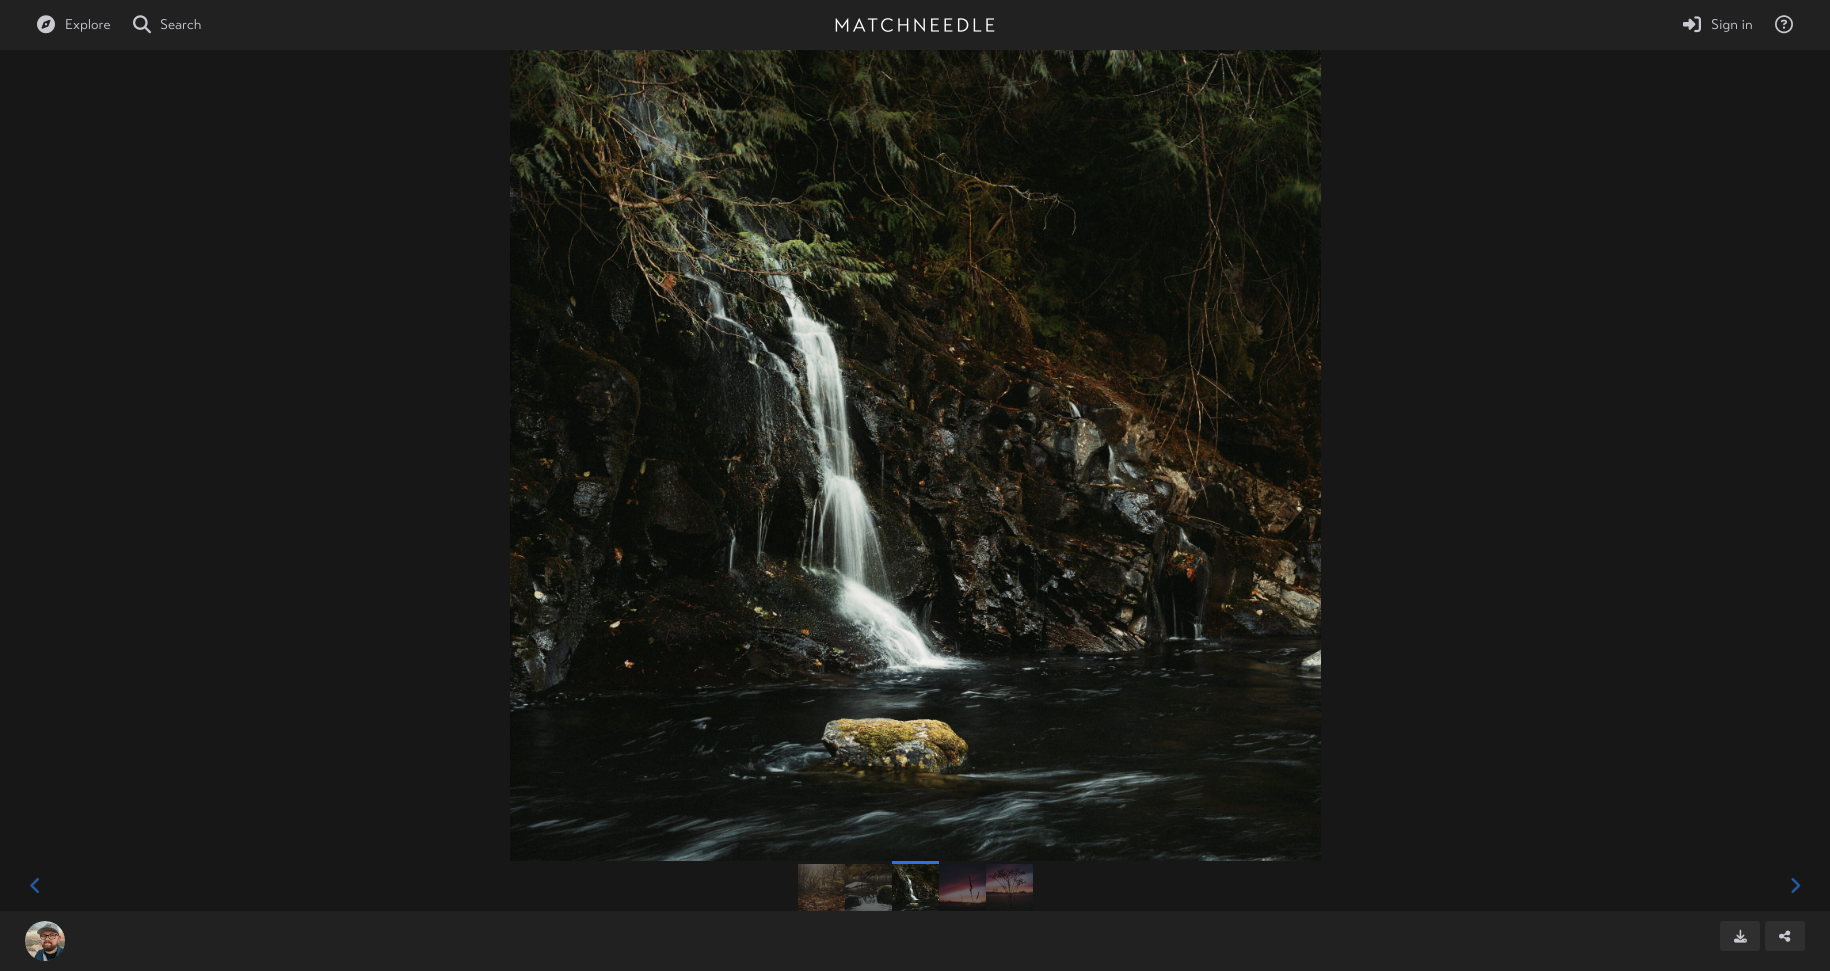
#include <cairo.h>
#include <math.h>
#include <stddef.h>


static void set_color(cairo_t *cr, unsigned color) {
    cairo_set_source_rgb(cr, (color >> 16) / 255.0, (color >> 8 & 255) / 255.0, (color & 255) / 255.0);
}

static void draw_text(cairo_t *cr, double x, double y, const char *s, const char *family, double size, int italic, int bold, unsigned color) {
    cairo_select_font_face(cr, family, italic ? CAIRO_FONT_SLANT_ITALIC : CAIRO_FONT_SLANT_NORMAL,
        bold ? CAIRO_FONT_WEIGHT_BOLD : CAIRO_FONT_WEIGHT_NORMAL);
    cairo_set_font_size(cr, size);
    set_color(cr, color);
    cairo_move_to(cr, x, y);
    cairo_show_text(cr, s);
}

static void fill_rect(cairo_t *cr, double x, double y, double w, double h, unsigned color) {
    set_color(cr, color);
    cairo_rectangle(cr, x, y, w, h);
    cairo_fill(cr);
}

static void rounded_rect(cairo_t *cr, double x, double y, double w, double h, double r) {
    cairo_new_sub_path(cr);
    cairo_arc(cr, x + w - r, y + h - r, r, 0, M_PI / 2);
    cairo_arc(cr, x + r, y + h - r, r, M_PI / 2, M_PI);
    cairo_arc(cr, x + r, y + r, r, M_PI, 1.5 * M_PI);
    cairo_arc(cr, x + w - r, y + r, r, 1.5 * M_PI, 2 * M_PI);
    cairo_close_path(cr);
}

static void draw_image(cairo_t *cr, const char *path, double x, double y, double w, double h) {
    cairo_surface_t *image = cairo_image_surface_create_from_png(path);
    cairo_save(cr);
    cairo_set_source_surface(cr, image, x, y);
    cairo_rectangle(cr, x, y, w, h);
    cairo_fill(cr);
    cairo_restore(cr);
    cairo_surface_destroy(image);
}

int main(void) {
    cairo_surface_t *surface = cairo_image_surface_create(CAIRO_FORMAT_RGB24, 1830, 971);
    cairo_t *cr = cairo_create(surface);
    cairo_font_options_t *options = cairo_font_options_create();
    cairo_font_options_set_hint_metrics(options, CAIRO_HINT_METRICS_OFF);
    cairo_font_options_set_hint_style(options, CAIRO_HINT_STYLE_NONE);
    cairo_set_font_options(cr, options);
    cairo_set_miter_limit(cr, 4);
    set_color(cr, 0x212121);
    cairo_paint(cr);
    draw_image(cr, "assets/img1.png", 37, 15, 18, 19);
    draw_text(cr, 65, 29, "Explore", "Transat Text", 14, 0, 0, 0xCAC9CF);
    draw_image(cr, "assets/img2.png", 133, 15, 18, 19);
    draw_text(cr, 160, 29, "Search", "Transat Text", 14, 0, 0, 0xCAC9CF);
    draw_image(cr, "assets/img3.png", 835, 18, 160, 14);
    draw_image(cr, "assets/img4.png", 1683, 16, 18, 17);
    draw_text(cr, 1711, 29, "Sign in", "Transat Text", 14, 0, 0, 0xCAC9CF);
    draw_image(cr, "assets/img5.png", 1775, 15, 18, 19);
    fill_rect(cr, 0, 50, 1830, 861, 0x171717);
    draw_image(cr, "assets/img6.png", 798, 864, 47, 47);
    draw_image(cr, "assets/img7.png", 845, 864, 47, 47);
    fill_rect(cr, 892, 861, 47, 3, 0x2B73DE);
    draw_image(cr, "assets/img8.png", 892, 864, 47, 47);
    draw_image(cr, "assets/img9.png", 939, 864, 47, 47);
    draw_image(cr, "assets/img10.png", 986, 864, 47, 47);
    draw_image(cr, "assets/img11.png", 30, 878, 9, 15);
    draw_image(cr, "assets/img12.png", 1791, 878, 10, 15);
    draw_image(cr, "assets/img13.png", 510, 50, 811, 811);
    draw_image(cr, "assets/img14.png", 25, 921, 40, 40);
    set_color(cr, 0x2F2F2F);
    rounded_rect(cr, 1720.5, 921.5, 39, 29, 2.5);
    cairo_fill_preserve(cr);
    cairo_set_line_width(cr, 1);
    cairo_stroke(cr);
    draw_image(cr, "assets/img15.png", 1734, 929, 13, 14);
    rounded_rect(cr, 1765.5, 921.5, 39, 29, 2.5);
    cairo_fill_preserve(cr);
    cairo_stroke(cr);
    draw_image(cr, "assets/img16.png", 1779, 930, 12, 12);
    cairo_surface_write_to_png(surface, "output.png");
    cairo_font_options_destroy(options);
    cairo_destroy(cr);
    cairo_surface_destroy(surface);
    return 0;
}
